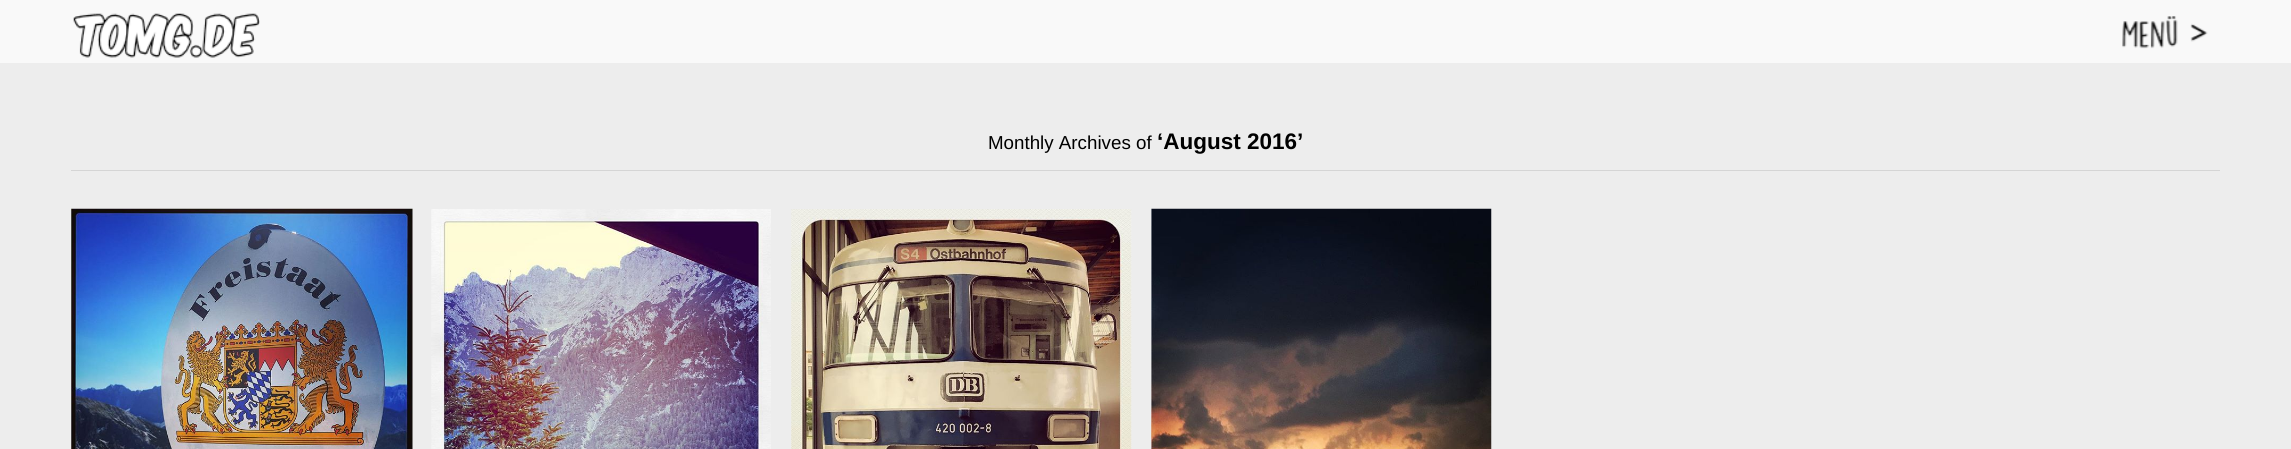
#include <cairo.h>
#include <math.h>
#include <stddef.h>


static void set_color(cairo_t *cr, unsigned color) {
    cairo_set_source_rgb(cr, (color >> 16) / 255.0, (color >> 8 & 255) / 255.0, (color & 255) / 255.0);
}

static void draw_text(cairo_t *cr, double x, double y, const char *s, const char *family, double size, int italic, int bold, unsigned color) {
    cairo_select_font_face(cr, family, italic ? CAIRO_FONT_SLANT_ITALIC : CAIRO_FONT_SLANT_NORMAL,
        bold ? CAIRO_FONT_WEIGHT_BOLD : CAIRO_FONT_WEIGHT_NORMAL);
    cairo_set_font_size(cr, size);
    set_color(cr, color);
    cairo_move_to(cr, x, y);
    cairo_show_text(cr, s);
}

static void fill_rect(cairo_t *cr, double x, double y, double w, double h, unsigned color) {
    set_color(cr, color);
    cairo_rectangle(cr, x, y, w, h);
    cairo_fill(cr);
}

static void draw_image(cairo_t *cr, const char *path, double x, double y, double w, double h) {
    cairo_surface_t *image = cairo_image_surface_create_from_png(path);
    cairo_save(cr);
    cairo_set_source_surface(cr, image, x, y);
    cairo_rectangle(cr, x, y, w, h);
    cairo_fill(cr);
    cairo_restore(cr);
    cairo_surface_destroy(image);
}

int main(void) {
    cairo_surface_t *surface = cairo_image_surface_create(CAIRO_FORMAT_RGB24, 2291, 449);
    cairo_t *cr = cairo_create(surface);
    cairo_font_options_t *options = cairo_font_options_create();
    cairo_font_options_set_hint_metrics(options, CAIRO_HINT_METRICS_OFF);
    cairo_font_options_set_hint_style(options, CAIRO_HINT_STYLE_NONE);
    cairo_set_font_options(cr, options);
    cairo_set_miter_limit(cr, 4);
    set_color(cr, 0xEDEDED);
    cairo_paint(cr);
    fill_rect(cr, 0, 0, 2291, 63, 0xF9F9F9);
    draw_image(cr, "assets/img1.png", 2122, 16, 86, 33);
    draw_image(cr, "assets/img2.png", 73, 13, 187, 45);
    fill_rect(cr, 71, 170, 2149, 1, 0xD5D5D5);
    draw_text(cr, 988, 149, "Monthly Archives of", "Liberation Sans", 18.75, 0, 0, 0x000000);
    draw_text(cr, 1157, 149, "‘August 2016’", "Liberation Sans", 22.5, 0, 1, 0x000000);
    draw_image(cr, "assets/img3.png", 71, 208, 342, 241);
    draw_image(cr, "assets/img4.png", 431, 209, 340, 240);
    draw_image(cr, "assets/img5.png", 791, 209, 341, 240);
    draw_image(cr, "assets/img6.png", 1151, 208, 341, 241);
    cairo_surface_write_to_png(surface, "output.png");
    cairo_font_options_destroy(options);
    cairo_destroy(cr);
    cairo_surface_destroy(surface);
    return 0;
}
